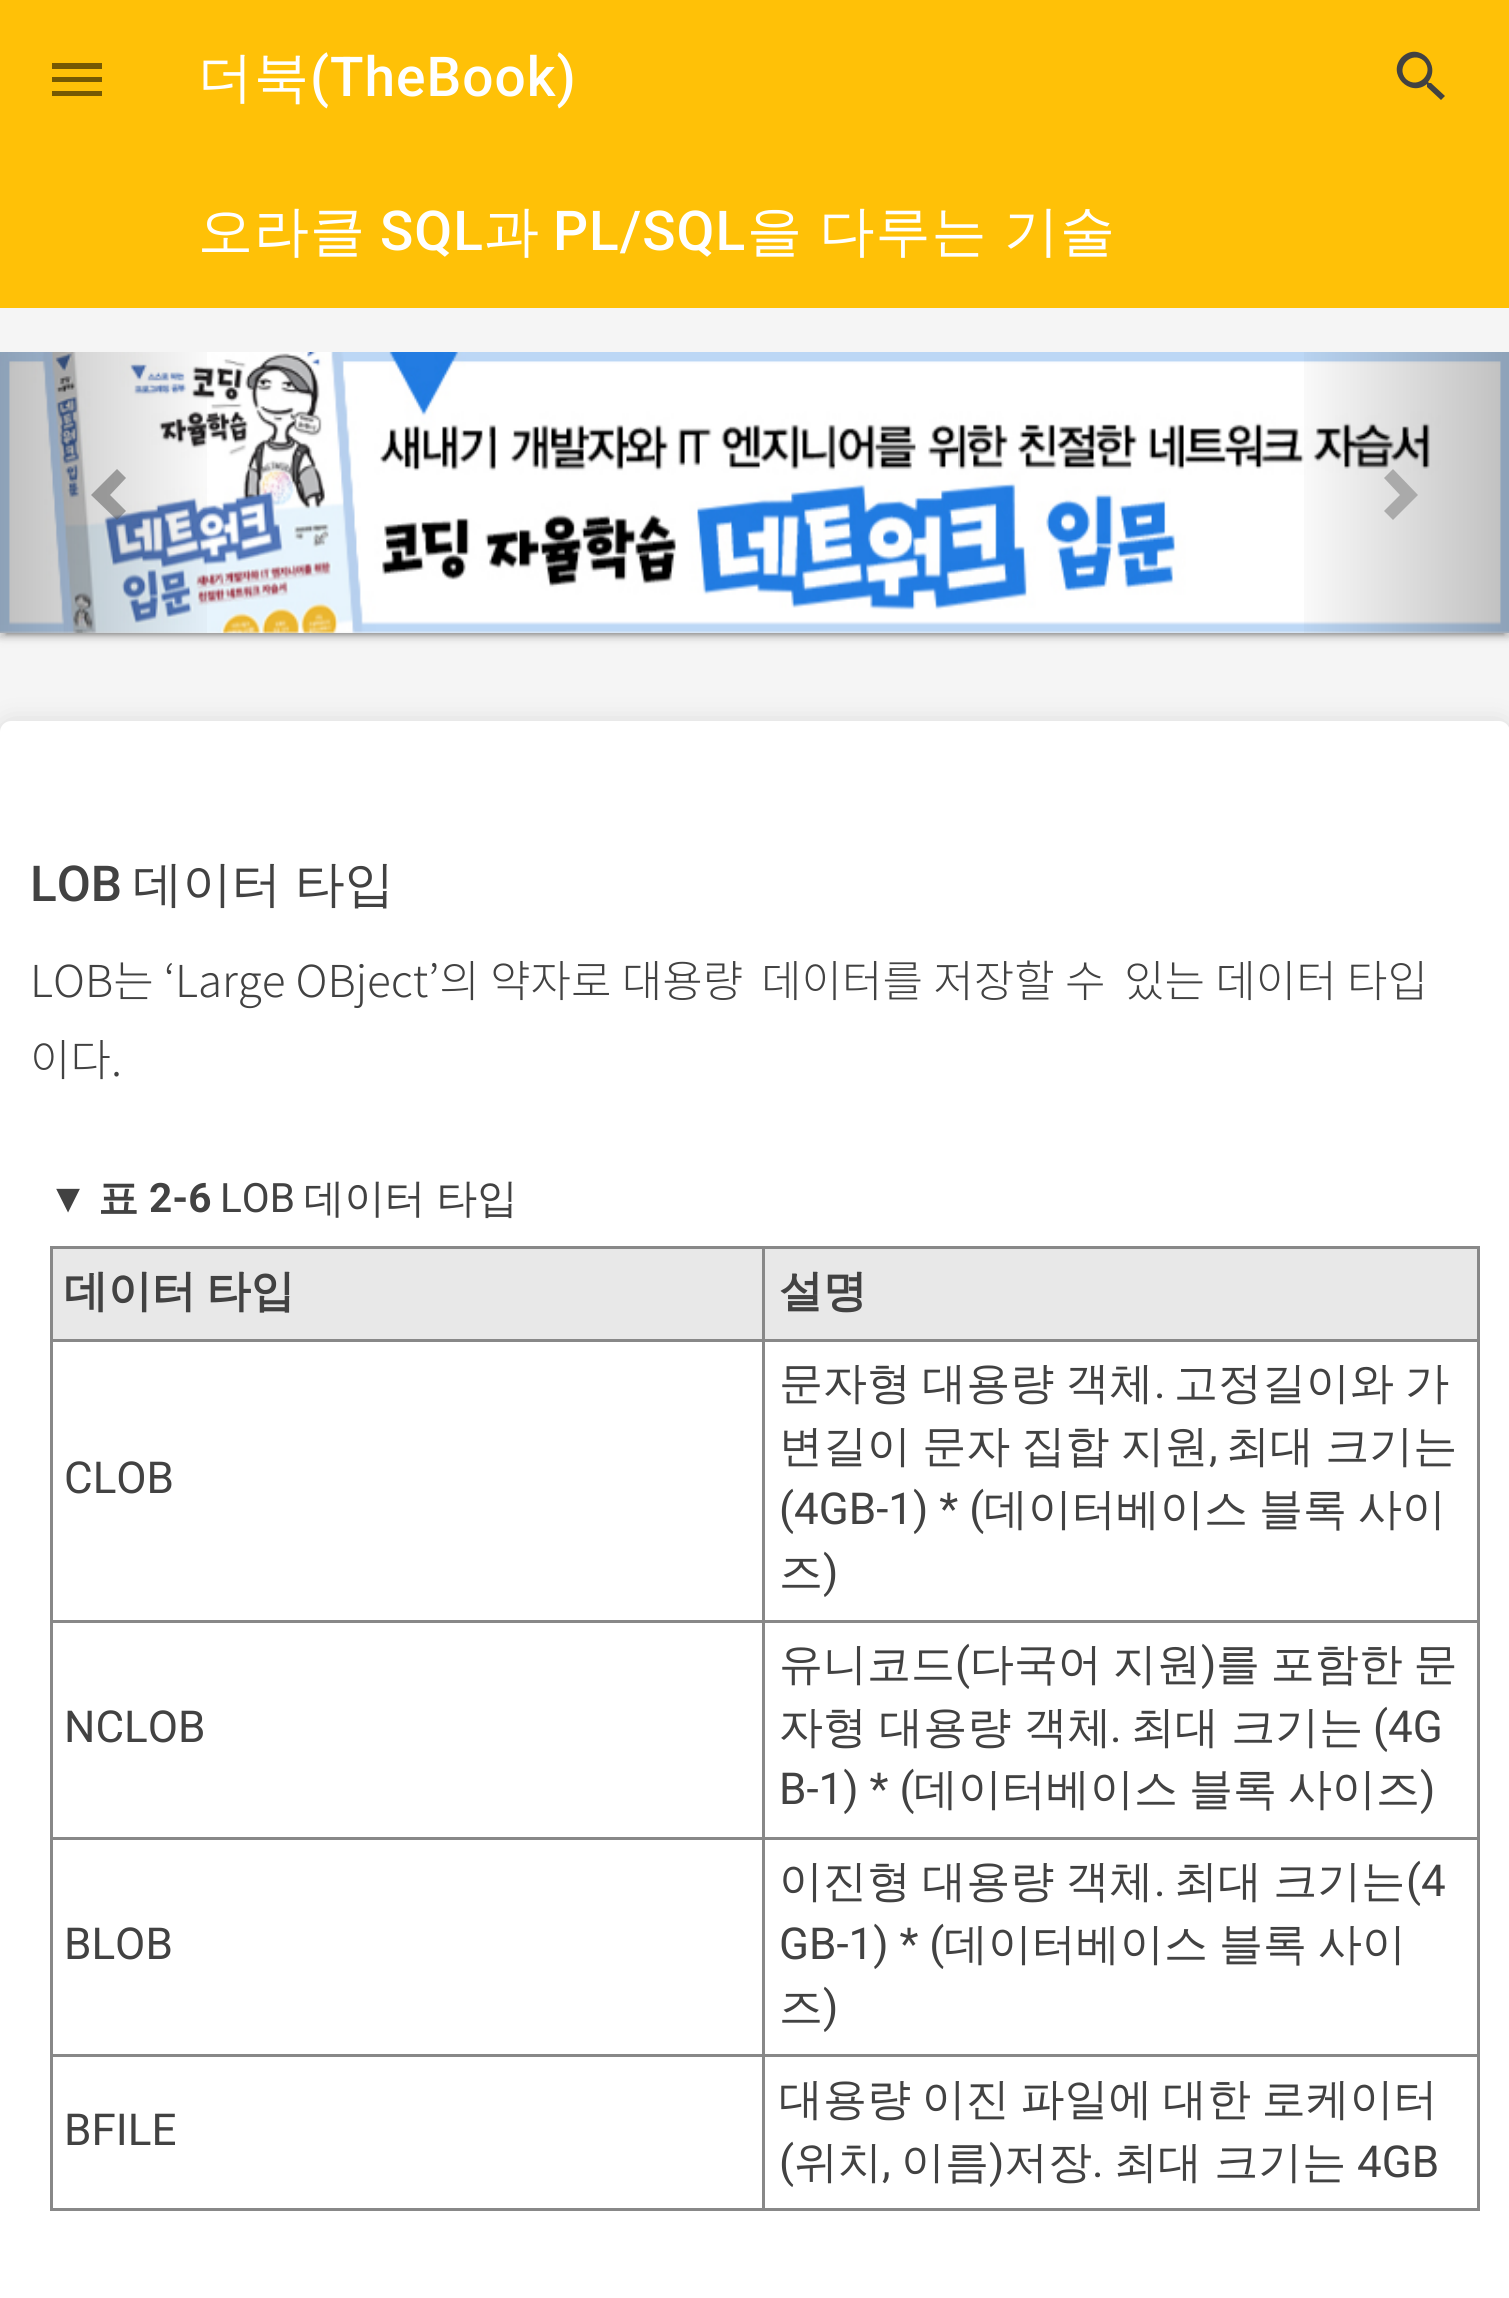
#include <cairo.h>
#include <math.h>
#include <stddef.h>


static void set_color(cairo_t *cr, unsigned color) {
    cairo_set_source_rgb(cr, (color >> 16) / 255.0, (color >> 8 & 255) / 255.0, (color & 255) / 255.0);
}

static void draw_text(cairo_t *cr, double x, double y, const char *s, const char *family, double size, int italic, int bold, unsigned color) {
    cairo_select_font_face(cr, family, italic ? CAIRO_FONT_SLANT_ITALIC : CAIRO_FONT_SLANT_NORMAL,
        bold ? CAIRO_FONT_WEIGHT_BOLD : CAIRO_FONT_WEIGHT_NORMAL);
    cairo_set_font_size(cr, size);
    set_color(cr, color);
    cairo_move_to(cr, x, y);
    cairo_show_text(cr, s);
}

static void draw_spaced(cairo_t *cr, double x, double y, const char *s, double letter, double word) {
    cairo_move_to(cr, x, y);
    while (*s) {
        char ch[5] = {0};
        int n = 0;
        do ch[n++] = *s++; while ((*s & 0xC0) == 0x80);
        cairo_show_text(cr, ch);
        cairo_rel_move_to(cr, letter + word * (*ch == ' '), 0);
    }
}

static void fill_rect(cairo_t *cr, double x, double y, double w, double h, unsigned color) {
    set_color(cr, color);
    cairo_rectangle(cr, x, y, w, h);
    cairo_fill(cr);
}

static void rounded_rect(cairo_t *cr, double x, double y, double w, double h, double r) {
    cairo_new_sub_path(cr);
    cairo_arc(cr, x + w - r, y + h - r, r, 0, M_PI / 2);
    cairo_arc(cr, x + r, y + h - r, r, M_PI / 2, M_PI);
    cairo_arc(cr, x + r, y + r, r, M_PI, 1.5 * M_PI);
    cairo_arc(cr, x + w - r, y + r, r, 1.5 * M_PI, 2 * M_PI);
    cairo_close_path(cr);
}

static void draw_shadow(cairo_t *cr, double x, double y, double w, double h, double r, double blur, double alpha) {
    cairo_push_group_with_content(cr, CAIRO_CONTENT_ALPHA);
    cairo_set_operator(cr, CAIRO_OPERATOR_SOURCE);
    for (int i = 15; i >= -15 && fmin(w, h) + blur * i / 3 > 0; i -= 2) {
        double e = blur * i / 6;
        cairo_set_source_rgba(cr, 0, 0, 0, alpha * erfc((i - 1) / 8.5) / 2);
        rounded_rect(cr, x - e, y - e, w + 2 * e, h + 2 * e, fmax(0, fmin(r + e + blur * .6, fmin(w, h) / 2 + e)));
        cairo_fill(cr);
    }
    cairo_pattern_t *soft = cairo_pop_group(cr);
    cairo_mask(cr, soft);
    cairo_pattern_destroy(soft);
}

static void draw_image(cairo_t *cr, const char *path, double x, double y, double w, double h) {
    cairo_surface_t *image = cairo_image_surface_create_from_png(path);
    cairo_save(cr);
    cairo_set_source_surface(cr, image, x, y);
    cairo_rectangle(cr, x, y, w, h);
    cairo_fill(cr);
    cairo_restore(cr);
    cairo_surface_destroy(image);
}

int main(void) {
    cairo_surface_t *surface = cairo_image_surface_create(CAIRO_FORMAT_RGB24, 1509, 2298);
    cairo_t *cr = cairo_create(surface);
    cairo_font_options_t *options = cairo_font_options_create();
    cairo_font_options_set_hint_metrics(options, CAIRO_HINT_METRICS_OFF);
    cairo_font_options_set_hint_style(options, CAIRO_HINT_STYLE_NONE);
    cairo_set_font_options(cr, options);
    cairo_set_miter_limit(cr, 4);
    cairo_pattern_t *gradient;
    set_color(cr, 0xF5F5F5);
    cairo_paint(cr);
    cairo_save(cr);
    cairo_set_fill_rule(cr, CAIRO_FILL_RULE_EVEN_ODD);
    cairo_new_path(cr);
    cairo_move_to(cr, 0, 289);
    cairo_line_to(cr, 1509, 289);
    cairo_line_to(cr, 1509, 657);
    cairo_line_to(cr, 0, 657);
    cairo_close_path(cr);
    cairo_move_to(cr, 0, 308);
    cairo_line_to(cr, 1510, 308);
    cairo_line_to(cr, 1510, 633);
    cairo_line_to(cr, 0, 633);
    cairo_close_path(cr);
    cairo_clip(cr);
    set_color(cr, 0x000000);
    draw_shadow(cr, 0, 311, 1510, 324, 0, 7, 0.12);
    cairo_restore(cr);
    cairo_save(cr);
    cairo_set_fill_rule(cr, CAIRO_FILL_RULE_EVEN_ODD);
    cairo_new_path(cr);
    cairo_move_to(cr, 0, 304);
    cairo_line_to(cr, 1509, 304);
    cairo_line_to(cr, 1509, 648);
    cairo_line_to(cr, 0, 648);
    cairo_close_path(cr);
    cairo_move_to(cr, 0, 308);
    cairo_line_to(cr, 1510, 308);
    cairo_line_to(cr, 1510, 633);
    cairo_line_to(cr, 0, 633);
    cairo_close_path(cr);
    cairo_clip(cr);
    set_color(cr, 0x000000);
    draw_shadow(cr, 0, 314, 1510, 324, 0, 3, 0.14);
    cairo_restore(cr);
    fill_rect(cr, 0, 0, 1509, 308, 0xFFC107);
    set_color(cr, 0x755903);
    cairo_new_path(cr);
    cairo_move_to(cr, 52, 63);
    cairo_line_to(cr, 102, 63);
    cairo_line_to(cr, 102, 69);
    cairo_line_to(cr, 52, 69);
    cairo_close_path(cr);
    cairo_move_to(cr, 52, 82);
    cairo_line_to(cr, 52, 77);
    cairo_line_to(cr, 102, 77);
    cairo_line_to(cr, 102, 82);
    cairo_close_path(cr);
    cairo_move_to(cr, 52, 96);
    cairo_line_to(cr, 52, 91);
    cairo_line_to(cr, 102, 91);
    cairo_line_to(cr, 102, 96);
    cairo_close_path(cr);
    cairo_fill(cr);
    cairo_select_font_face(cr, "WenQuanYi Zen Hei Medium", CAIRO_FONT_SLANT_NORMAL, CAIRO_FONT_WEIGHT_NORMAL);
    cairo_set_font_size(cr, 55);
    set_color(cr, 0xFFFFFF);
    draw_spaced(cr, 198, 96, "더북", 1, 0);
    cairo_select_font_face(cr, "Roboto Medium", CAIRO_FONT_SLANT_NORMAL, CAIRO_FONT_WEIGHT_NORMAL);
    draw_spaced(cr, 310, 96, "(TheBook)", 1, 0);
    set_color(cr, 0x424242);
    cairo_new_path(cr);
    cairo_move_to(cr, 1406, 79);
    cairo_curve_to(cr, 1418, 90, 1435, 73, 1424, 61);
    cairo_curve_to(cr, 1412, 50, 1395, 67, 1406, 79);
    cairo_close_path(cr);
    cairo_move_to(cr, 1431, 83);
    cairo_line_to(cr, 1445, 96);
    cairo_line_to(cr, 1441, 100);
    cairo_line_to(cr, 1427, 87);
    cairo_line_to(cr, 1427, 84);
    cairo_curve_to(cr, 1410, 98, 1386, 74, 1402, 57);
    cairo_curve_to(cr, 1419, 41, 1442, 65, 1428, 82);
    cairo_line_to(cr, 1429, 83);
    cairo_close_path(cr);
    cairo_fill(cr);
    cairo_select_font_face(cr, "WenQuanYi Zen Hei Medium", CAIRO_FONT_SLANT_NORMAL, CAIRO_FONT_WEIGHT_NORMAL);
    set_color(cr, 0xFFFFFF);
    draw_spaced(cr, 198, 250, "오라클", 1, 0);
    cairo_select_font_face(cr, "Roboto Medium", CAIRO_FONT_SLANT_NORMAL, CAIRO_FONT_WEIGHT_NORMAL);
    draw_spaced(cr, 380, 250, "SQL", 1, 0);
    cairo_select_font_face(cr, "WenQuanYi Zen Hei Medium", CAIRO_FONT_SLANT_NORMAL, CAIRO_FONT_WEIGHT_NORMAL);
    draw_spaced(cr, 484, 250, "과", 1, 0);
    cairo_select_font_face(cr, "Roboto Medium", CAIRO_FONT_SLANT_NORMAL, CAIRO_FONT_WEIGHT_NORMAL);
    draw_spaced(cr, 553, 250, "PL/SQL", 1, 0);
    cairo_select_font_face(cr, "WenQuanYi Zen Hei Medium", CAIRO_FONT_SLANT_NORMAL, CAIRO_FONT_WEIGHT_NORMAL);
    draw_spaced(cr, 747, 250, "을 다루는 기술", 1, -1);
    cairo_save(cr);
    cairo_set_fill_rule(cr, CAIRO_FILL_RULE_EVEN_ODD);
    cairo_new_path(cr);
    cairo_move_to(cr, 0, 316);
    cairo_line_to(cr, 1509, 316);
    cairo_line_to(cr, 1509, 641);
    cairo_line_to(cr, 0, 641);
    cairo_close_path(cr);
    cairo_move_to(cr, 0, 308);
    cairo_line_to(cr, 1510, 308);
    cairo_line_to(cr, 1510, 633);
    cairo_line_to(cr, 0, 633);
    cairo_close_path(cr);
    cairo_clip(cr);
    set_color(cr, 0x000000);
    draw_shadow(cr, 6, 322, 1498, 313, 0, 1.5, 0.2);
    cairo_restore(cr);
    draw_image(cr, "assets/img1.png", 0, 352, 1509, 281);
    gradient = cairo_pattern_create_linear(0, 492, 226, 492);
    cairo_pattern_add_color_stop_rgba(gradient, 0, 0, 0, 0, 0.25);
    cairo_pattern_add_color_stop_rgba(gradient, 1, 0, 0, 0, 0);
    cairo_set_source(cr, gradient);
    cairo_pattern_destroy(gradient);
    cairo_rectangle(cr, 0, 352, 207, 281);
    cairo_fill(cr);
    cairo_set_source_rgba(cr, 0.333, 0.333, 0.333, 0.5);
    cairo_new_path(cr);
    cairo_move_to(cr, 126, 478);
    cairo_line_to(cr, 110, 495);
    cairo_line_to(cr, 126, 511);
    cairo_line_to(cr, 117, 520);
    cairo_line_to(cr, 91, 495);
    cairo_line_to(cr, 117, 469);
    cairo_close_path(cr);
    cairo_fill(cr);
    gradient = cairo_pattern_create_linear(1284, 492, 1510, 492);
    cairo_pattern_add_color_stop_rgba(gradient, 0, 0, 0, 0, 0);
    cairo_pattern_add_color_stop_rgba(gradient, 1, 0, 0, 0, 0.25);
    cairo_set_source(cr, gradient);
    cairo_pattern_destroy(gradient);
    cairo_rectangle(cr, 1304, 352, 205, 281);
    cairo_fill(cr);
    set_color(cr, 0xAAAAAA);
    cairo_new_path(cr);
    cairo_move_to(cr, 1418, 495);
    cairo_line_to(cr, 1393, 520);
    cairo_line_to(cr, 1384, 511);
    cairo_line_to(cr, 1400, 495);
    cairo_line_to(cr, 1384, 478);
    cairo_line_to(cr, 1393, 469);
    cairo_close_path(cr);
    cairo_fill(cr);
    set_color(cr, 0x000000);
    draw_shadow(cr, 0, 723, 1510, 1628, 11, 14, 0.12);
    set_color(cr, 0xFFFFFF);
    cairo_new_path(cr);
    cairo_move_to(cr, 11, 721);
    cairo_line_to(cr, 1499, 721);
    cairo_curve_to(cr, 1505, 721, 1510, 726, 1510, 732);
    cairo_line_to(cr, 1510, 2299);
    cairo_line_to(cr, 0, 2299);
    cairo_line_to(cr, 0, 732);
    cairo_curve_to(cr, 0, 726, 5, 721, 11, 721);
    cairo_close_path(cr);
    cairo_fill(cr);
    draw_text(cr, 30, 901, "LOB", "Roboto Medium", 49.5, 0, 0, 0x424242);
    cairo_select_font_face(cr, "WenQuanYi Zen Hei Medium", CAIRO_FONT_SLANT_NORMAL, CAIRO_FONT_WEIGHT_NORMAL);
    draw_spaced(cr, 133, 901, "데이터 타입", 0, -1);
    cairo_select_font_face(cr, "Noto Sans KR Light", CAIRO_FONT_SLANT_NORMAL, CAIRO_FONT_WEIGHT_NORMAL);
    cairo_set_font_size(cr, 44);
    draw_spaced(cr, 30, 997, "LOB는 ‘Large OBject’의 약자로 대용량", 0, 0.5);
    draw_spaced(cr, 761, 997, "데이터를 저장할 수", 0, 0.5);
    draw_spaced(cr, 1124, 997, "있는 데이터 타입", 0, 0.5);
    draw_text(cr, 30, 1076, "이다.", "Noto Sans KR Light", 44, 0, 0, 0x424242);
    draw_text(cr, 48, 1212, "▼", "Liberation Sans", 40.5, 0, 0, 0x424242);
    draw_text(cr, 98, 1212, "표", "WenQuanYi Zen Hei", 40.5, 0, 1, 0x424242);
    draw_text(cr, 149, 1212, "2-6", "Roboto", 40.5, 0, 1, 0x424242);
    draw_text(cr, 220, 1212, "LOB", "Roboto", 40.5, 0, 0, 0x424242);
    cairo_select_font_face(cr, "WenQuanYi Zen Hei Medium", CAIRO_FONT_SLANT_NORMAL, CAIRO_FONT_WEIGHT_NORMAL);
    draw_spaced(cr, 304, 1212, "데이터 타입", 0, -1);
    fill_rect(cr, 50, 1246, 1430, 3, 0x888888);
    fill_rect(cr, 1477, 1246, 3, 965, 0x888888);
    fill_rect(cr, 50, 2208, 1430, 3, 0x888888);
    fill_rect(cr, 50, 1246, 3, 965, 0x888888);
    fill_rect(cr, 53, 1249, 1424, 90, 0xE8E8E8);
    cairo_select_font_face(cr, "WenQuanYi Zen Hei", CAIRO_FONT_SLANT_NORMAL, CAIRO_FONT_WEIGHT_BOLD);
    cairo_set_font_size(cr, 44);
    set_color(cr, 0x424242);
    draw_spaced(cr, 64, 1306, "데이터 타입", 0, -2.5);
    fill_rect(cr, 762, 1339, 718, 3, 0x888888);
    fill_rect(cr, 762, 1620, 718, 3, 0x888888);
    fill_rect(cr, 762, 1837, 718, 3, 0x888888);
    fill_rect(cr, 762, 2054, 718, 3, 0x888888);
    fill_rect(cr, 762, 2054, 3, 157, 0x888888);
    fill_rect(cr, 50, 2054, 715, 3, 0x888888);
    fill_rect(cr, 762, 1837, 3, 220, 0x888888);
    fill_rect(cr, 50, 1837, 715, 3, 0x888888);
    fill_rect(cr, 762, 1620, 3, 220, 0x888888);
    fill_rect(cr, 50, 1620, 715, 3, 0x888888);
    fill_rect(cr, 762, 1339, 3, 284, 0x888888);
    fill_rect(cr, 50, 1339, 715, 3, 0x888888);
    fill_rect(cr, 762, 1246, 3, 96, 0x888888);
    draw_text(cr, 779, 1306, "설명", "WenQuanYi Zen Hei", 44, 0, 1, 0x424242);
    draw_text(cr, 64, 1493, "CLOB", "Roboto", 44, 0, 0, 0x424242);
    cairo_select_font_face(cr, "WenQuanYi Zen Hei Medium", CAIRO_FONT_SLANT_NORMAL, CAIRO_FONT_WEIGHT_NORMAL);
    draw_spaced(cr, 779, 1398, "문자형 대용량 객체", 0, -2);
    draw_text(cr, 1154, 1398, ".", "Roboto", 44, 0, 0, 0x424242);
    cairo_select_font_face(cr, "WenQuanYi Zen Hei Medium", CAIRO_FONT_SLANT_NORMAL, CAIRO_FONT_WEIGHT_NORMAL);
    draw_spaced(cr, 1174, 1398, "고정길이와 가", 0, -2);
    draw_spaced(cr, 779, 1461, "변길이 문자 집합 지원", 0, -2);
    draw_text(cr, 1209, 1461, ",", "Roboto", 44, 0, 0, 0x424242);
    cairo_select_font_face(cr, "WenQuanYi Zen Hei Medium", CAIRO_FONT_SLANT_NORMAL, CAIRO_FONT_WEIGHT_NORMAL);
    draw_spaced(cr, 1226, 1461, "최대 크기는", 0, -2);
    draw_text(cr, 779, 1524, "(4GB-1) * (", "Roboto", 44, 0, 0, 0x424242);
    draw_text(cr, 984, 1524, "데이터베이스", "WenQuanYi Zen Hei Medium", 44, 0, 0, 0x424242);
    draw_text(cr, 1259, 1524, "블록", "WenQuanYi Zen Hei Medium", 44, 0, 0, 0x424242);
    draw_text(cr, 1358, 1524, "사이", "WenQuanYi Zen Hei Medium", 44, 0, 0, 0x424242);
    draw_text(cr, 779, 1587, "즈", "WenQuanYi Zen Hei Medium", 44, 0, 0, 0x424242);
    draw_text(cr, 823, 1587, ")", "Roboto", 44, 0, 0, 0x424242);
    draw_text(cr, 64, 1742, "NCLOB", "Roboto", 44, 0, 0, 0x424242);
    draw_text(cr, 779, 1679, "유니코드", "WenQuanYi Zen Hei Medium", 44, 0, 0, 0x424242);
    draw_text(cr, 955, 1679, "(", "Roboto", 44, 0, 0, 0x424242);
    cairo_select_font_face(cr, "WenQuanYi Zen Hei Medium", CAIRO_FONT_SLANT_NORMAL, CAIRO_FONT_WEIGHT_NORMAL);
    draw_spaced(cr, 970, 1679, "다국어 지원", 0, -2.5);
    draw_text(cr, 1201, 1679, ")", "Roboto", 44, 0, 0, 0x424242);
    cairo_select_font_face(cr, "WenQuanYi Zen Hei Medium", CAIRO_FONT_SLANT_NORMAL, CAIRO_FONT_WEIGHT_NORMAL);
    draw_spaced(cr, 1216, 1679, "를 포함한 문", 0, -2.5);
    draw_spaced(cr, 779, 1742, "자형 대용량 객체", 0, -1);
    draw_text(cr, 1110, 1742, ".", "Roboto", 44, 0, 0, 0x424242);
    cairo_select_font_face(cr, "WenQuanYi Zen Hei Medium", CAIRO_FONT_SLANT_NORMAL, CAIRO_FONT_WEIGHT_NORMAL);
    draw_spaced(cr, 1131, 1742, "최대 크기는", 0, -1);
    draw_text(cr, 1373, 1742, "(4G", "Roboto", 44, 0, 0, 0x424242);
    draw_text(cr, 779, 1804, "B-1) * (", "Roboto", 44, 0, 0, 0x424242);
    draw_text(cr, 914, 1804, "데이터베이스", "WenQuanYi Zen Hei Medium", 44, 0, 0, 0x424242);
    draw_text(cr, 1189, 1804, "블록", "WenQuanYi Zen Hei Medium", 44, 0, 0, 0x424242);
    draw_text(cr, 1288, 1804, "사이즈", "WenQuanYi Zen Hei Medium", 44, 0, 0, 0x424242);
    draw_text(cr, 1420, 1804, ")", "Roboto", 44, 0, 0, 0x424242);
    draw_text(cr, 64, 1959, "BLOB", "Roboto", 44, 0, 0, 0x424242);
    cairo_select_font_face(cr, "WenQuanYi Zen Hei Medium", CAIRO_FONT_SLANT_NORMAL, CAIRO_FONT_WEIGHT_NORMAL);
    draw_spaced(cr, 779, 1896, "이진형 대용량 객체", 0, -2);
    draw_text(cr, 1154, 1896, ".", "Roboto", 44, 0, 0, 0x424242);
    cairo_select_font_face(cr, "WenQuanYi Zen Hei Medium", CAIRO_FONT_SLANT_NORMAL, CAIRO_FONT_WEIGHT_NORMAL);
    draw_spaced(cr, 1174, 1896, "최대 크기는", 0, -2);
    draw_text(cr, 1406, 1896, "(4", "Roboto", 44, 0, 0, 0x424242);
    draw_text(cr, 779, 1959, "GB-1) * (", "Roboto", 44, 0, 0, 0x424242);
    draw_text(cr, 944, 1959, "데이터베이스", "WenQuanYi Zen Hei Medium", 44, 0, 0, 0x424242);
    draw_text(cr, 1219, 1959, "블록", "WenQuanYi Zen Hei Medium", 44, 0, 0, 0x424242);
    draw_text(cr, 1318, 1959, "사이", "WenQuanYi Zen Hei Medium", 44, 0, 0, 0x424242);
    draw_text(cr, 779, 2022, "즈", "WenQuanYi Zen Hei Medium", 44, 0, 0, 0x424242);
    draw_text(cr, 823, 2022, ")", "Roboto", 44, 0, 0, 0x424242);
    draw_text(cr, 64, 2145, "BFILE", "Roboto", 44, 0, 0, 0x424242);
    cairo_select_font_face(cr, "WenQuanYi Zen Hei Medium", CAIRO_FONT_SLANT_NORMAL, CAIRO_FONT_WEIGHT_NORMAL);
    draw_spaced(cr, 779, 2114, "대용량 이진 파일에 대한 로케이터", 0, -2.5);
    draw_text(cr, 779, 2177, "(", "Roboto", 44, 0, 0, 0x424242);
    draw_text(cr, 794, 2177, "위치", "WenQuanYi Zen Hei Medium", 44, 0, 0, 0x424242);
    draw_text(cr, 882, 2177, ",", "Roboto", 44, 0, 0, 0x424242);
    draw_text(cr, 901, 2177, "이름", "WenQuanYi Zen Hei Medium", 44, 0, 0, 0x424242);
    draw_text(cr, 989, 2177, ")", "Roboto", 44, 0, 0, 0x424242);
    draw_text(cr, 1004, 2177, "저장", "WenQuanYi Zen Hei Medium", 44, 0, 0, 0x424242);
    draw_text(cr, 1092, 2177, ".", "Roboto", 44, 0, 0, 0x424242);
    cairo_select_font_face(cr, "WenQuanYi Zen Hei Medium", CAIRO_FONT_SLANT_NORMAL, CAIRO_FONT_WEIGHT_NORMAL);
    draw_spaced(cr, 1114, 2177, "최대 크기는", 0, -1);
    draw_text(cr, 1357, 2177, "4GB", "Roboto", 44, 0, 0, 0x424242);
    cairo_surface_write_to_png(surface, "output.png");
    cairo_font_options_destroy(options);
    cairo_destroy(cr);
    cairo_surface_destroy(surface);
    return 0;
}
